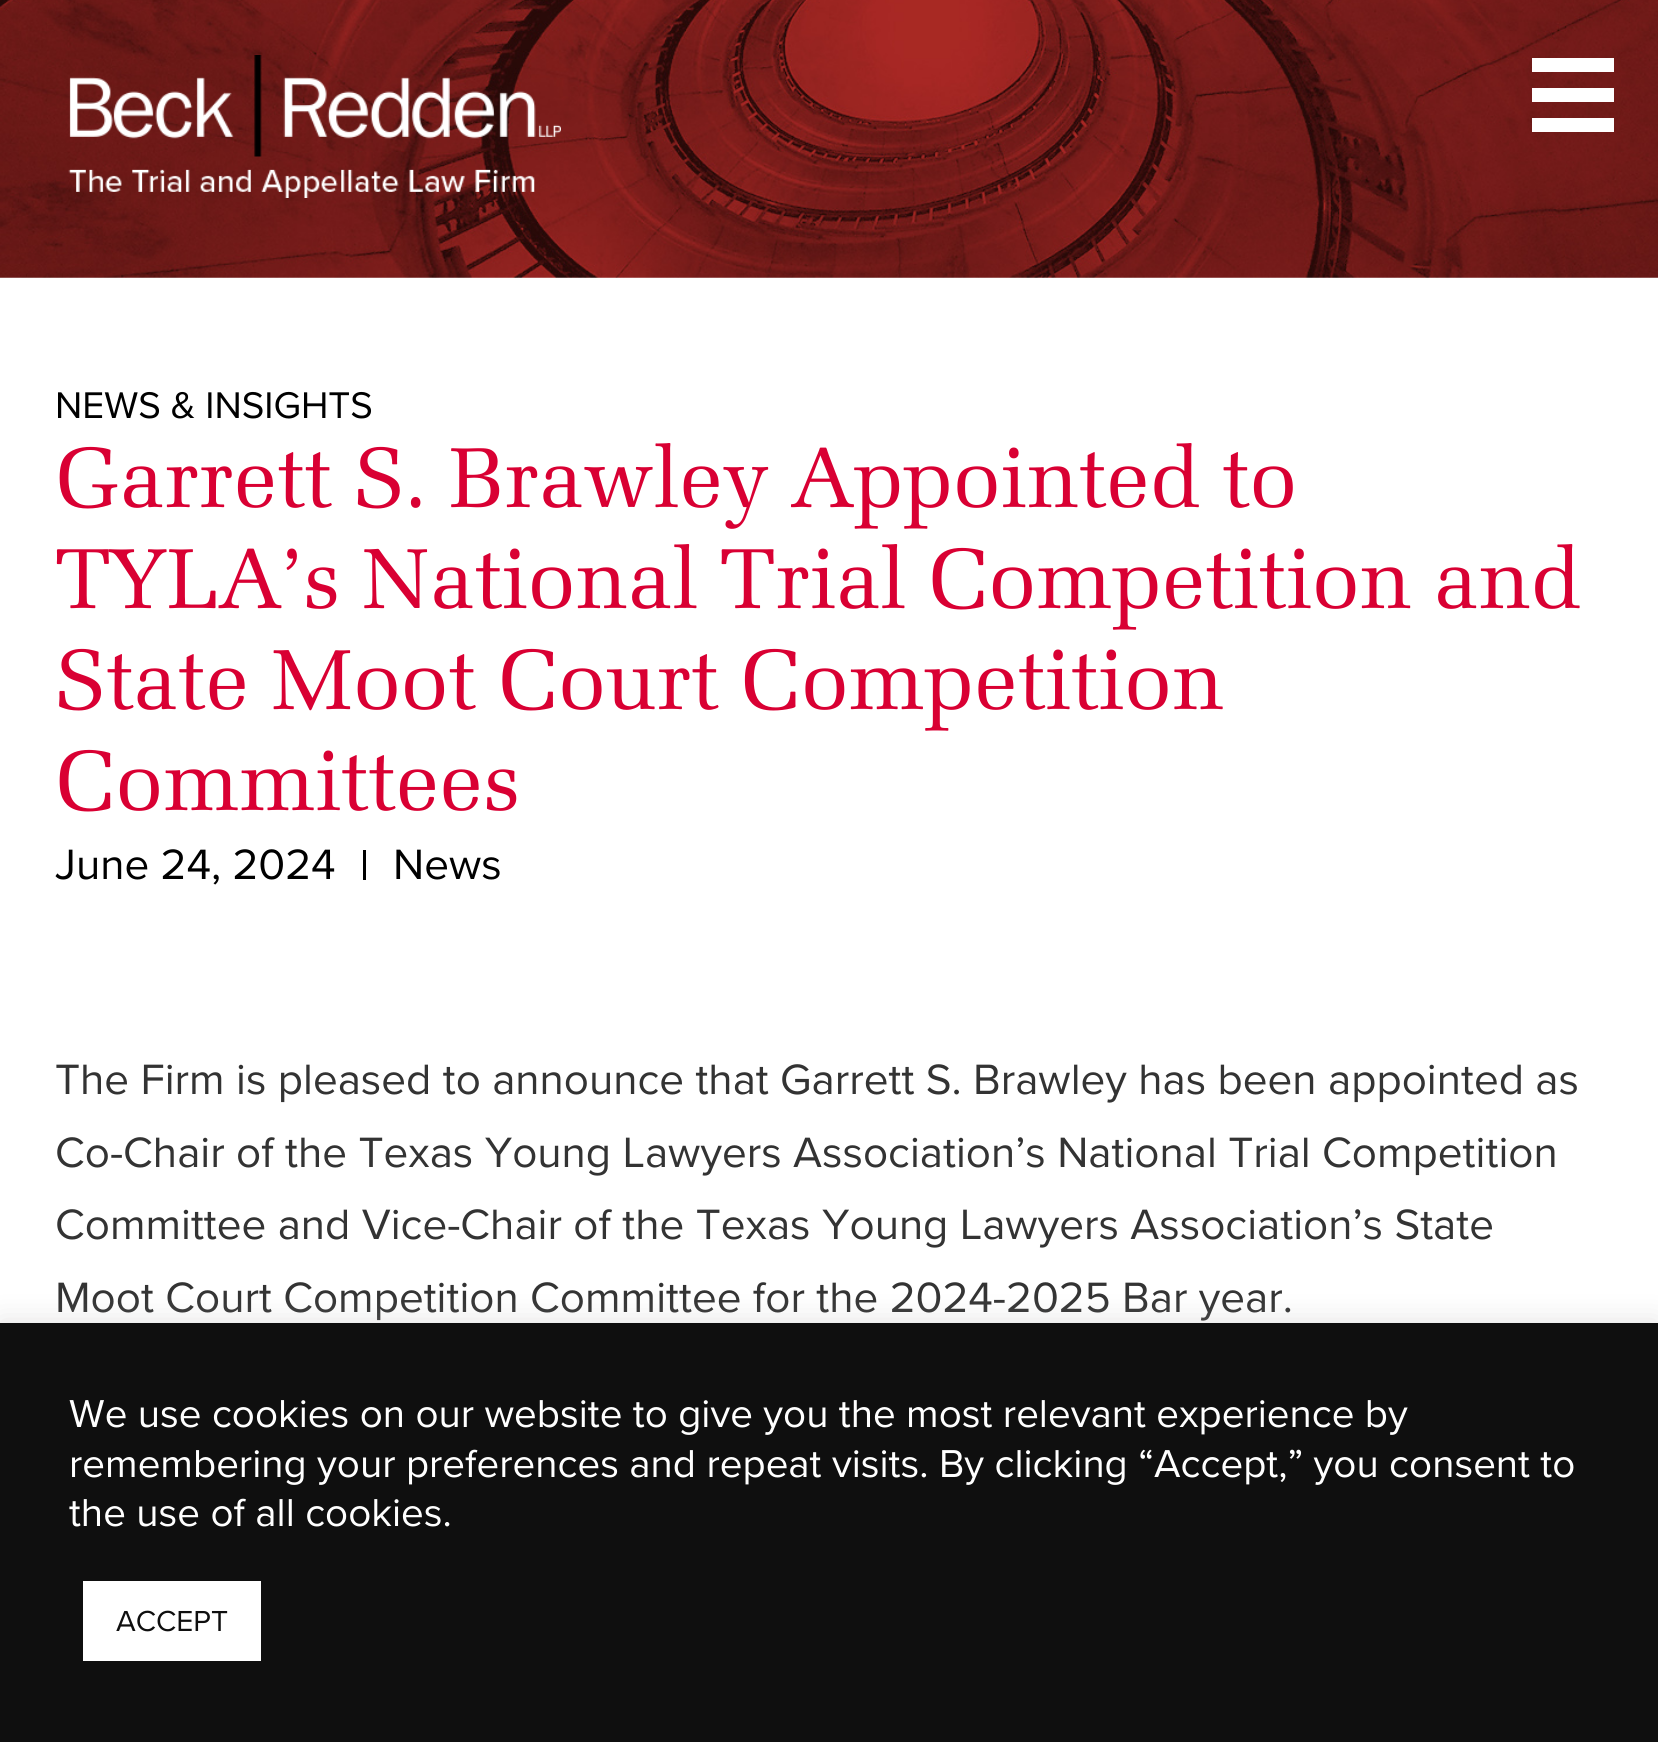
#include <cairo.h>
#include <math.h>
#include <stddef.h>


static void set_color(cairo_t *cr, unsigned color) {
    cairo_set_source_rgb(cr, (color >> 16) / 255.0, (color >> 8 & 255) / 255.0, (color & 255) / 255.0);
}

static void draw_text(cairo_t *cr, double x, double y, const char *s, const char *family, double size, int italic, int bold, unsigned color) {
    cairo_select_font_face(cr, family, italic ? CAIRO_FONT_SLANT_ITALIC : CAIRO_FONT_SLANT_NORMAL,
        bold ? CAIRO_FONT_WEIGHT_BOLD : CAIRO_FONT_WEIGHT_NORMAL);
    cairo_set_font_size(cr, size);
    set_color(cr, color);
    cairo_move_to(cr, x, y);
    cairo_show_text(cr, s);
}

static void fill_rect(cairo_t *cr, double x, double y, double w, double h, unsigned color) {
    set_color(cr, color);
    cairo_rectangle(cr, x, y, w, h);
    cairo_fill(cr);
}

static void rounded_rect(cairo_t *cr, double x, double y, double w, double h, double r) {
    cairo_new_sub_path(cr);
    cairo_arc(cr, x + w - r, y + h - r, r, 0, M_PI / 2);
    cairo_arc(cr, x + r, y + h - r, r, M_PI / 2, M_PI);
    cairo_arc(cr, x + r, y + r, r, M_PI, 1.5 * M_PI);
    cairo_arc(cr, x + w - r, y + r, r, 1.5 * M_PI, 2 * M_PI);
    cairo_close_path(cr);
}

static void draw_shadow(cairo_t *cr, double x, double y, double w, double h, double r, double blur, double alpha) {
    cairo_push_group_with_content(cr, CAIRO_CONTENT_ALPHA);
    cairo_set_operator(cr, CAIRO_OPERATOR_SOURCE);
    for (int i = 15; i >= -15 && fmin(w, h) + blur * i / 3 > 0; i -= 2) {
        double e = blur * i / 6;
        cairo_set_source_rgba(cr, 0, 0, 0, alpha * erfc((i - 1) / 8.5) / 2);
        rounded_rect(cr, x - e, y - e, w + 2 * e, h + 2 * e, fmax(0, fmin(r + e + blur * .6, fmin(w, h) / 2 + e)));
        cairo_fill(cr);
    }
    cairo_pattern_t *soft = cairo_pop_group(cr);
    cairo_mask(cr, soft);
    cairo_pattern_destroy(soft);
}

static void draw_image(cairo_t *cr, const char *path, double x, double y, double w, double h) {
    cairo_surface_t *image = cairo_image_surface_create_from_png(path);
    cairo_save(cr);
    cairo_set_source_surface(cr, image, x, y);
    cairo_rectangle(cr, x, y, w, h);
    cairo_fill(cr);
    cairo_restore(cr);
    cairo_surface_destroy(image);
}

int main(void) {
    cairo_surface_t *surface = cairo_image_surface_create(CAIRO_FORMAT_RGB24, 1658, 1742);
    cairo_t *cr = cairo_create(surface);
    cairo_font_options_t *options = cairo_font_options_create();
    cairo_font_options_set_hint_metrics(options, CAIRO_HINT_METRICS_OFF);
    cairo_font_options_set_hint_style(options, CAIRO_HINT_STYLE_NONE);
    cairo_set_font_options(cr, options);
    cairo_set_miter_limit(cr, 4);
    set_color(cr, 0xFFFFFF);
    cairo_paint(cr);
    draw_image(cr, "assets/img1.png", 0, 0, 1658, 278);
    draw_image(cr, "assets/img2.png", 68, 55, 493, 143);
    fill_rect(cr, 1532, 88, 82, 14, 0xFFFFFF);
    fill_rect(cr, 1532, 58, 82, 14, 0xFFFFFF);
    fill_rect(cr, 1532, 118, 82, 14, 0xFFFFFF);
    draw_text(cr, 55, 418, "NEWS & INSIGHTS", "Proxima Nova", 38.5, 0, 0, 0x000000);
    draw_text(cr, 55, 507, "Garrett S. Brawley Appointed to", "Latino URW", 88, 0, 0, 0xD90033);
    draw_text(cr, 55, 608, "TYLA’s National Trial Competition and", "Latino URW", 88, 0, 0, 0xD90033);
    draw_text(cr, 55, 709, "State Moot Court Competition", "Latino URW", 88, 0, 0, 0xD90033);
    draw_text(cr, 55, 810, "Committees", "Latino URW", 88, 0, 0, 0xD90033);
    fill_rect(cr, 363, 850, 3, 30, 0x000000);
    draw_text(cr, 55, 879, "June 24, 2024", "Proxima Nova", 44, 0, 0, 0x000000);
    draw_text(cr, 393, 879, "News", "Proxima Nova", 44, 0, 0, 0x000000);
    draw_text(cr, 55, 1094, "The Firm is pleased to announce that Garrett S. Brawley has been appointed as", "Proxima Nova", 44, 0, 0, 0x333333);
    draw_text(cr, 55, 1167, "Co-Chair of the Texas Young Lawyers Association’s National Trial Competition", "Proxima Nova", 44, 0, 0, 0x333333);
    draw_text(cr, 55, 1239, "Committee and Vice-Chair of the Texas Young Lawyers Association’s State", "Proxima Nova", 44, 0, 0, 0x333333);
    draw_text(cr, 55, 1312, "Moot Court Competition Committee for the 2024-2025 Bar year.", "Proxima Nova", 44, 0, 0, 0x333333);
    set_color(cr, 0xACABAB);
    draw_shadow(cr, 0, 1320, 1658, 421, 0, 14, 0.3);
    fill_rect(cr, 0, 1323, 1658, 419, 0x0F0F0F);
    draw_text(cr, 69, 1427, "We use cookies on our website to give you the most relevant experience by", "Proxima Nova", 40.35, 0, 0, 0xFFFFFF);
    draw_text(cr, 69, 1477, "remembering your preferences and repeat visits. By clicking “Accept,” you consent to", "Proxima Nova", 40.35, 0, 0, 0xFFFFFF);
    draw_text(cr, 69, 1526, "the use of all cookies.", "Proxima Nova", 40.35, 0, 0, 0xFFFFFF);
    fill_rect(cr, 83, 1581, 178, 80, 0xFFFFFF);
    draw_text(cr, 116, 1631, "ACCEPT", "Proxima Nova", 30, 0, 0, 0x0F0F0F);
    cairo_surface_write_to_png(surface, "output.png");
    cairo_font_options_destroy(options);
    cairo_destroy(cr);
    cairo_surface_destroy(surface);
    return 0;
}
